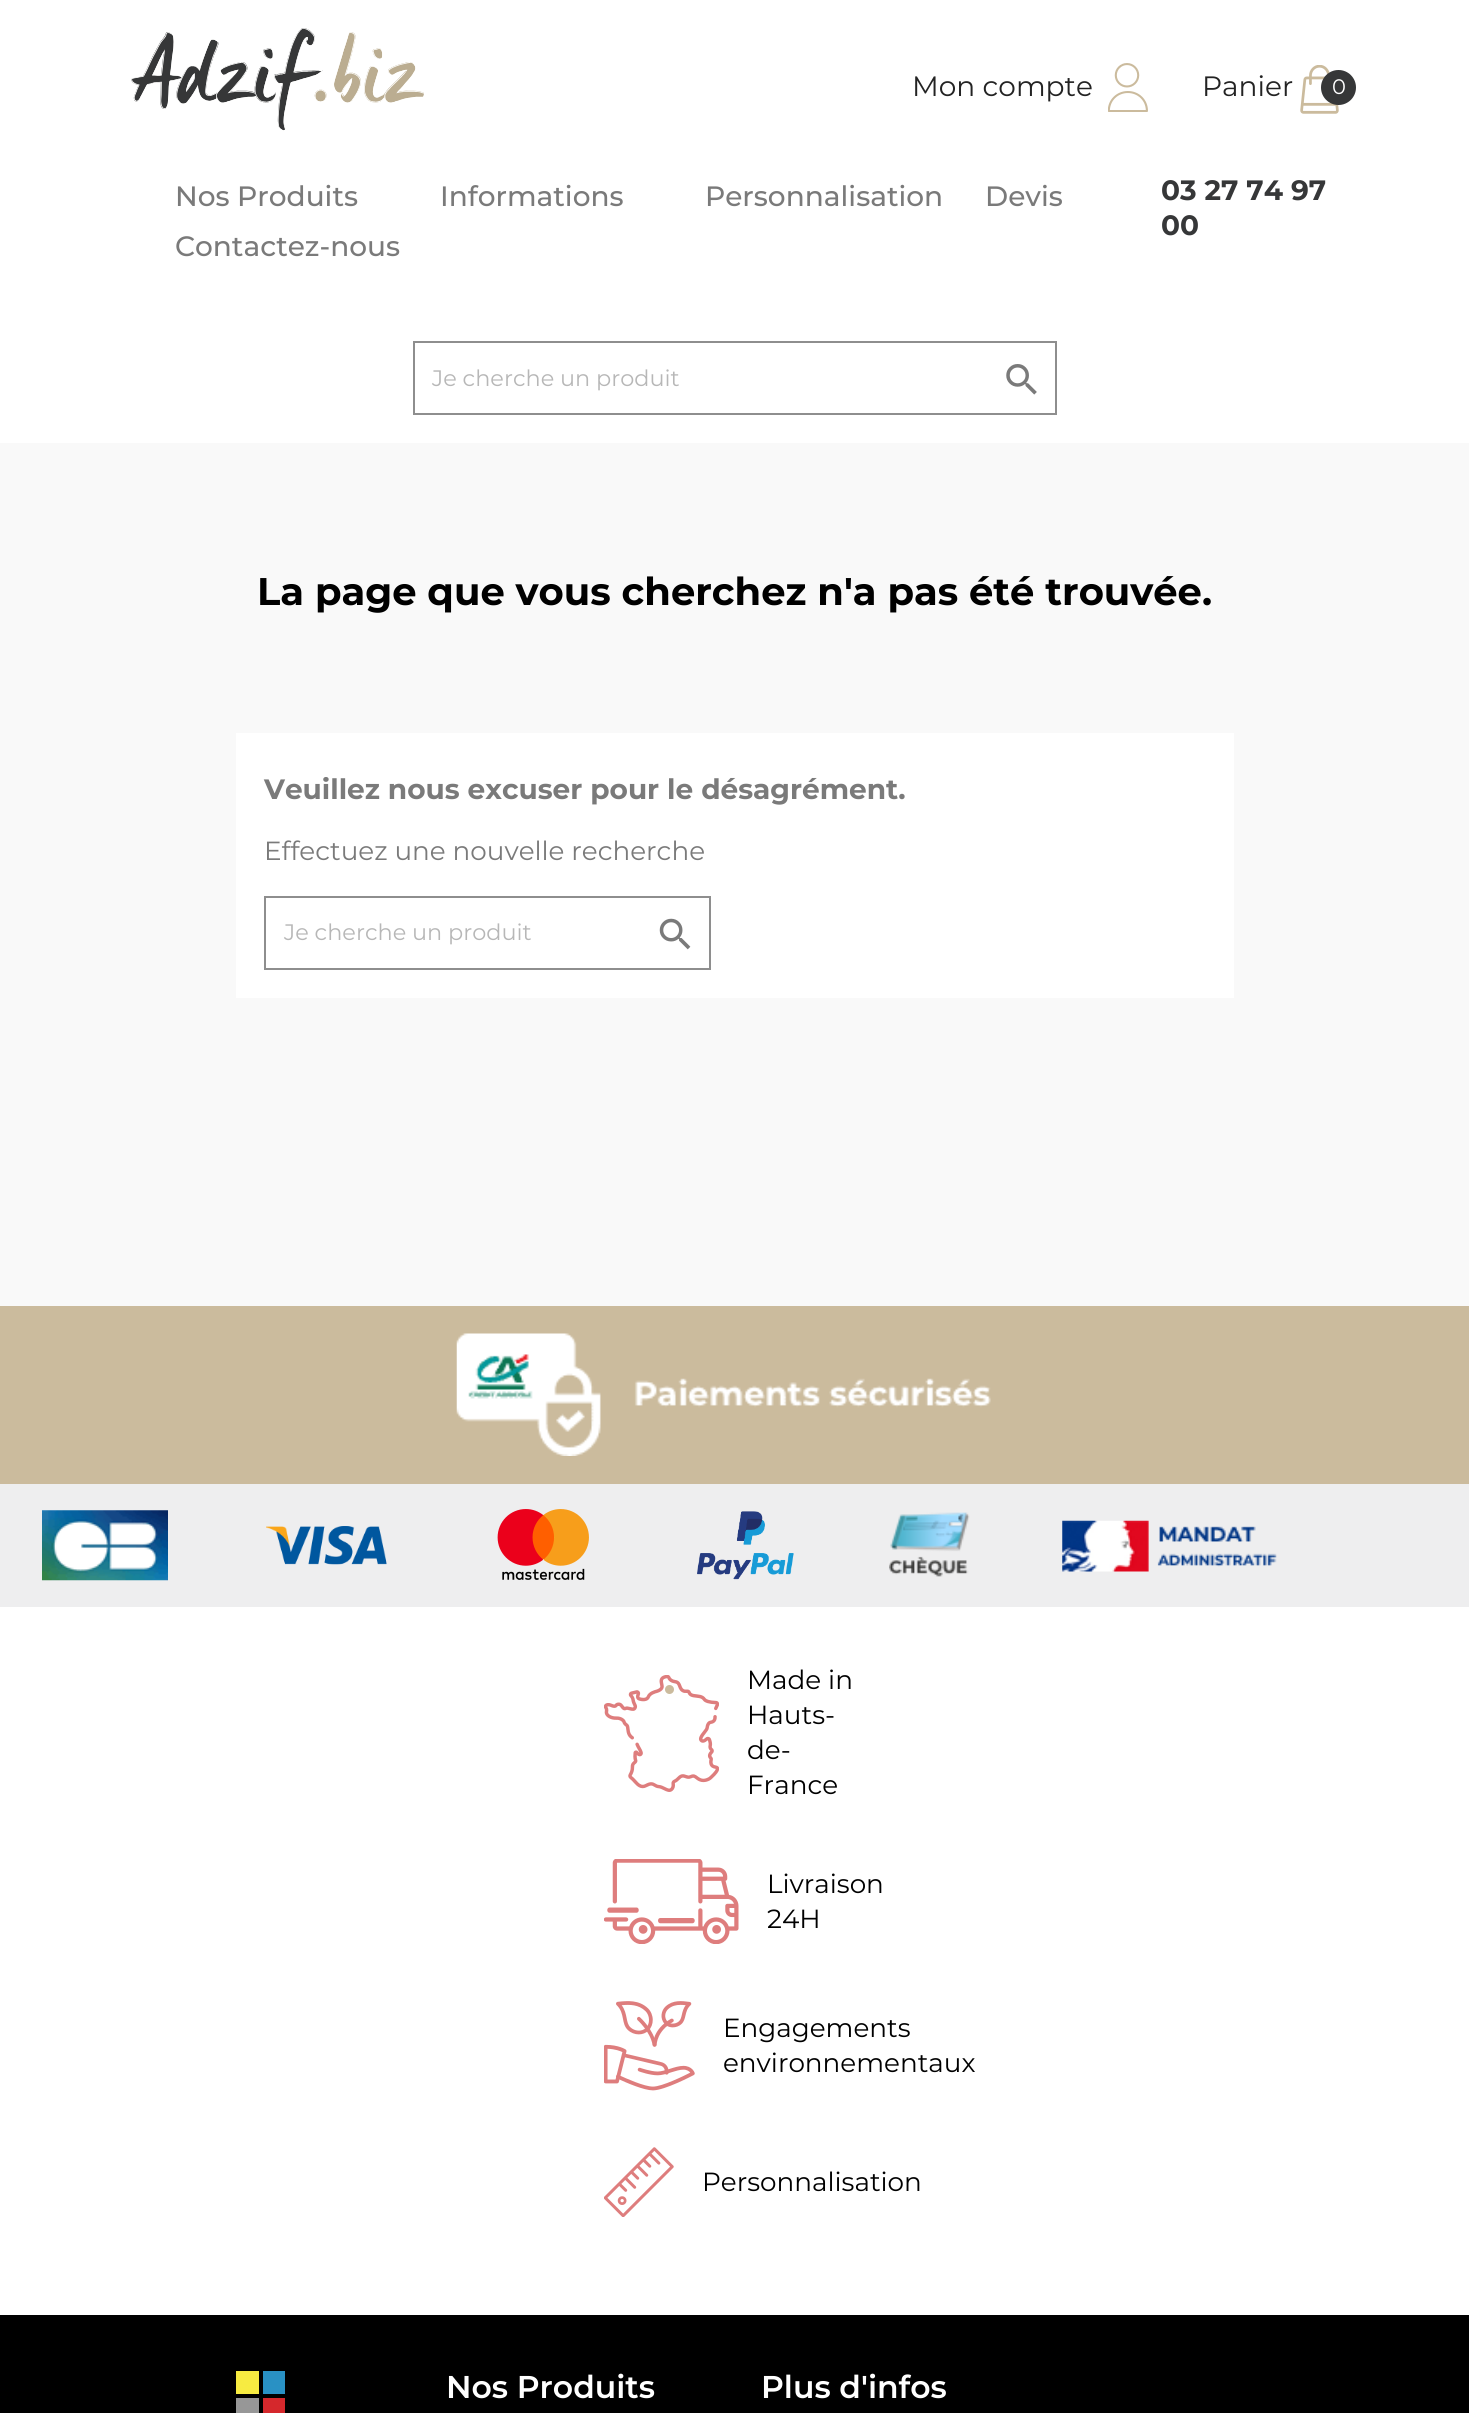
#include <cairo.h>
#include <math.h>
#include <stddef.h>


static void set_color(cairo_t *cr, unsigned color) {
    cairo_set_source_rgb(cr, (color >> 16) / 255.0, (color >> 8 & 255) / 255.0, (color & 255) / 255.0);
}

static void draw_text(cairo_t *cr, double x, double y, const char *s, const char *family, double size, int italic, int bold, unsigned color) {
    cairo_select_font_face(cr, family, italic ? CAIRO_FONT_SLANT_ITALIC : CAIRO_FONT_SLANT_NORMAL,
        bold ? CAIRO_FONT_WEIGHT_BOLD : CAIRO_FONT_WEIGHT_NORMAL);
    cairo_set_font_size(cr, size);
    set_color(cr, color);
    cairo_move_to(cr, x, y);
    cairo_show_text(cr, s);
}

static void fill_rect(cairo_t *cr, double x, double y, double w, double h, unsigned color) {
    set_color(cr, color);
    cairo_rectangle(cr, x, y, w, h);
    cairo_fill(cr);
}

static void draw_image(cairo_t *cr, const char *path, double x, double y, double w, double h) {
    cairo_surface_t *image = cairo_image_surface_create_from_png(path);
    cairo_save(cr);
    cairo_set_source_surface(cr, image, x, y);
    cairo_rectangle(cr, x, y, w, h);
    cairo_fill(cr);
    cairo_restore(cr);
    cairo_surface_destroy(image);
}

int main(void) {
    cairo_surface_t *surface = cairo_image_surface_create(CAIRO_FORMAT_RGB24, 1469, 2413);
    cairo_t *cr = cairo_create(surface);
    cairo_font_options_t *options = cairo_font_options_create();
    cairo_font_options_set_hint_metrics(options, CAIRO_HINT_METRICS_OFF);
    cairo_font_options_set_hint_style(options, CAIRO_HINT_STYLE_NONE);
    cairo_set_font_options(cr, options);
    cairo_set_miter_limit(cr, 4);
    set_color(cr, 0xFFFFFF);
    cairo_paint(cr);
    draw_image(cr, "assets/img1.png", 131, 28, 293, 103);
    draw_text(cr, 912, 96, "Mon compte", "Montserrat", 28, 0, 0, 0x232323);
    draw_image(cr, "assets/img2.png", 1108, 63, 40, 49);
    draw_text(cr, 1202, 96, "Panier", "Montserrat", 28, 0, 0, 0x232323);
    draw_image(cr, "assets/img3.png", 1300, 65, 39, 49);
    set_color(cr, 0x363738);
    cairo_arc(cr, 1338.5, 87.5, 17.5, 0, 2 * M_PI);
    cairo_fill(cr);
    draw_text(cr, 1332, 94, "0", "Montserrat", 21, 0, 0, 0xFFFFFF);
    draw_text(cr, 175, 206, "Nos Produits", "Montserrat Medium", 28, 0, 0, 0x7A7A7A);
    draw_text(cr, 440, 206, "Informations", "Montserrat Medium", 28, 0, 0, 0x7A7A7A);
    draw_text(cr, 705, 206, "Personnalisation", "Montserrat Medium", 28, 0, 0, 0x7A7A7A);
    draw_text(cr, 985, 206, "Devis", "Montserrat Medium", 28, 0, 0, 0x7A7A7A);
    draw_text(cr, 175, 256, "Contactez-nous", "Montserrat Medium", 28, 0, 0, 0x7A7A7A);
    draw_text(cr, 1161, 200, "03 27 74 97", "Montserrat", 28, 0, 1, 0x363738);
    draw_text(cr, 1161, 235, "00", "Montserrat", 28, 0, 1, 0x363738);
    cairo_rectangle(cr, 414, 342, 642, 72);
    set_color(cr, 0x8E8E8E);
    cairo_stroke(cr);
    draw_text(cr, 432, 386, "Je cherche un produit", "Montserrat", 22.4, 0, 0, 0xB7B7B7);
    draw_image(cr, "assets/img4.png", 1006, 364, 31, 31);
    fill_rect(cr, 0, 443, 1469, 863, 0xF9F9F9);
    draw_text(cr, 257, 605, "La page que vous cherchez n'a pas été trouvée.", "Montserrat", 38.5, 0, 1, 0x000000);
    fill_rect(cr, 236, 733, 998, 265, 0xFFFFFF);
    draw_text(cr, 264, 799, "Veuillez nous excuser pour le désagrément.", "Montserrat", 28, 0, 1, 0x7A7A7A);
    draw_text(cr, 264, 860, "Effectuez une nouvelle recherche", "Montserrat", 26.25, 0, 0, 0x7A7A7A);
    cairo_rectangle(cr, 265, 897, 445, 72);
    set_color(cr, 0x8E8E8E);
    cairo_stroke(cr);
    draw_text(cr, 284, 940, "Je cherche un produit", "Montserrat", 22.4, 0, 0, 0xB7B7B7);
    draw_image(cr, "assets/img5.png", 659, 918, 32, 32);
    fill_rect(cr, 0, 1306, 1469, 178, 0xCBBB9D);
    draw_image(cr, "assets/img6.png", 456, 1333, 535, 123);
    fill_rect(cr, 0, 1484, 1469, 123, 0xEEEEEF);
    draw_image(cr, "assets/img7.png", 42, 1510, 126, 71);
    draw_image(cr, "assets/img8.png", 266, 1526, 121, 39);
    draw_image(cr, "assets/img9.png", 497, 1509, 92, 71);
    draw_image(cr, "assets/img10.png", 697, 1511, 97, 69);
    draw_image(cr, "assets/img11.png", 889, 1512, 81, 65);
    draw_image(cr, "assets/img12.png", 1062, 1520, 215, 52);
    draw_image(cr, "assets/img13.png", 604, 1675, 115, 117);
    draw_text(cr, 747, 1689, "Made in", "Montserrat", 26.25, 0, 0, 0x000000);
    draw_text(cr, 747, 1724, "Hauts-", "Montserrat", 26.25, 0, 0, 0x000000);
    draw_text(cr, 747, 1759, "de-", "Montserrat", 26.25, 0, 0, 0x000000);
    draw_text(cr, 747, 1794, "France", "Montserrat", 26.25, 0, 0, 0x000000);
    draw_image(cr, "assets/img14.png", 604, 1859, 135, 85);
    draw_text(cr, 767, 1893, "Livraison", "Montserrat", 26.25, 0, 0, 0x000000);
    draw_text(cr, 767, 1928, "24H", "Montserrat", 26.25, 0, 0, 0x000000);
    draw_image(cr, "assets/img15.png", 604, 2001, 91, 90);
    draw_text(cr, 723, 2037, "Engagements", "Montserrat", 26.25, 0, 0, 0x000000);
    draw_text(cr, 723, 2072, "environnementaux", "Montserrat", 26.25, 0, 0, 0x000000);
    draw_image(cr, "assets/img16.png", 604, 2147, 70, 70);
    draw_text(cr, 702, 2191, "Personnalisation", "Montserrat", 26.25, 0, 0, 0x000000);
    fill_rect(cr, 0, 2315, 1469, 98, 0x000000);
    draw_image(cr, "assets/img17.png", 236, 2371, 49, 42);
    draw_text(cr, 446, 2398, "Nos Produits", "Montserrat SemiBold", 31.5, 0, 0, 0xFFFFFF);
    draw_text(cr, 761, 2398, "Plus d'infos", "Montserrat SemiBold", 31.5, 0, 0, 0xFFFFFF);
    cairo_surface_write_to_png(surface, "output.png");
    cairo_font_options_destroy(options);
    cairo_destroy(cr);
    cairo_surface_destroy(surface);
    return 0;
}
